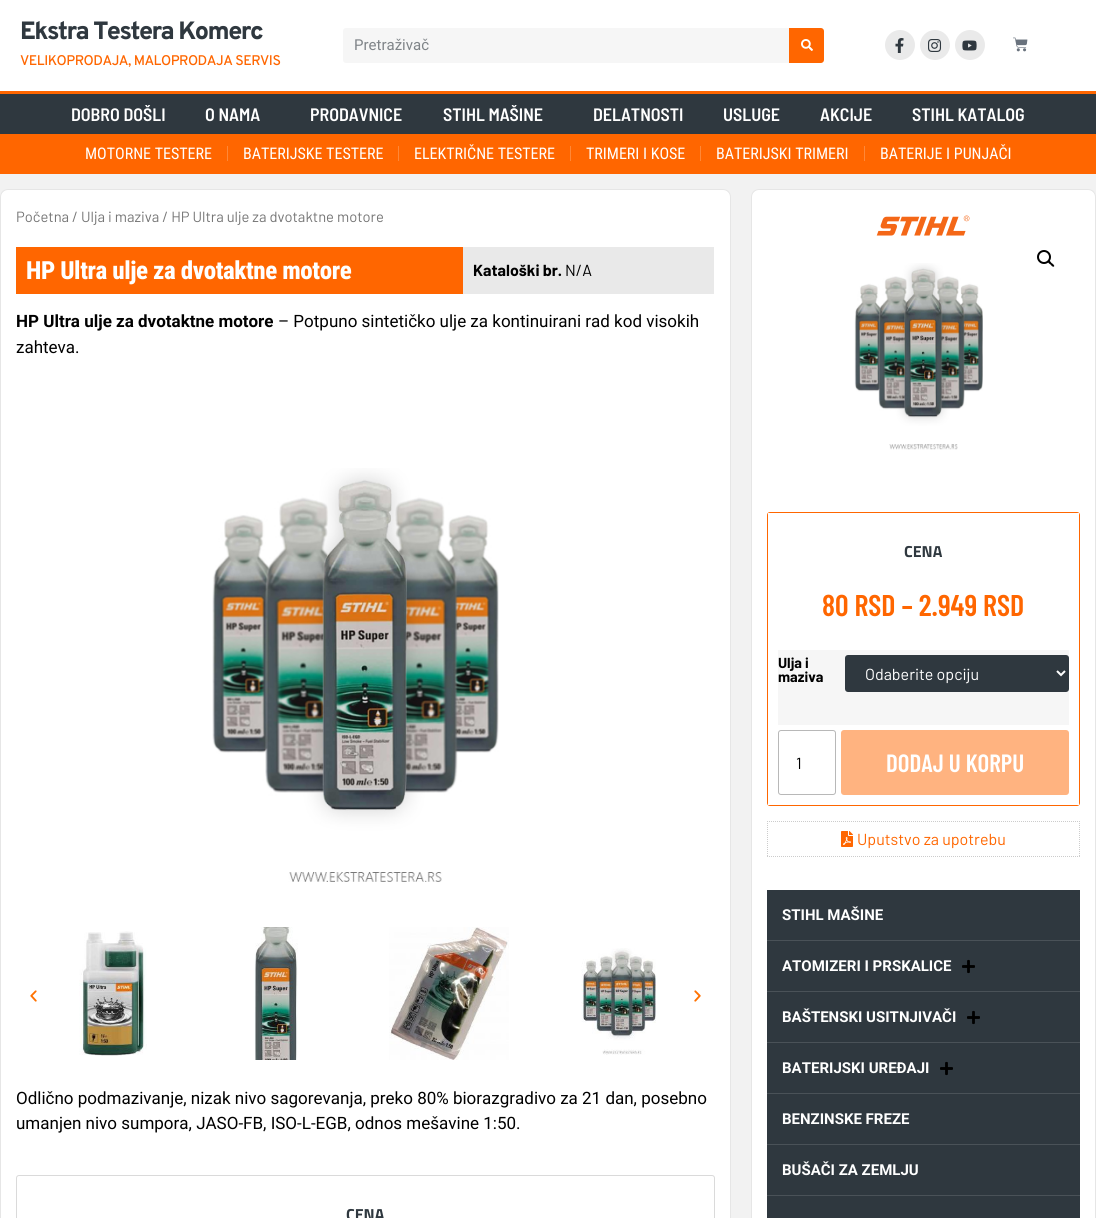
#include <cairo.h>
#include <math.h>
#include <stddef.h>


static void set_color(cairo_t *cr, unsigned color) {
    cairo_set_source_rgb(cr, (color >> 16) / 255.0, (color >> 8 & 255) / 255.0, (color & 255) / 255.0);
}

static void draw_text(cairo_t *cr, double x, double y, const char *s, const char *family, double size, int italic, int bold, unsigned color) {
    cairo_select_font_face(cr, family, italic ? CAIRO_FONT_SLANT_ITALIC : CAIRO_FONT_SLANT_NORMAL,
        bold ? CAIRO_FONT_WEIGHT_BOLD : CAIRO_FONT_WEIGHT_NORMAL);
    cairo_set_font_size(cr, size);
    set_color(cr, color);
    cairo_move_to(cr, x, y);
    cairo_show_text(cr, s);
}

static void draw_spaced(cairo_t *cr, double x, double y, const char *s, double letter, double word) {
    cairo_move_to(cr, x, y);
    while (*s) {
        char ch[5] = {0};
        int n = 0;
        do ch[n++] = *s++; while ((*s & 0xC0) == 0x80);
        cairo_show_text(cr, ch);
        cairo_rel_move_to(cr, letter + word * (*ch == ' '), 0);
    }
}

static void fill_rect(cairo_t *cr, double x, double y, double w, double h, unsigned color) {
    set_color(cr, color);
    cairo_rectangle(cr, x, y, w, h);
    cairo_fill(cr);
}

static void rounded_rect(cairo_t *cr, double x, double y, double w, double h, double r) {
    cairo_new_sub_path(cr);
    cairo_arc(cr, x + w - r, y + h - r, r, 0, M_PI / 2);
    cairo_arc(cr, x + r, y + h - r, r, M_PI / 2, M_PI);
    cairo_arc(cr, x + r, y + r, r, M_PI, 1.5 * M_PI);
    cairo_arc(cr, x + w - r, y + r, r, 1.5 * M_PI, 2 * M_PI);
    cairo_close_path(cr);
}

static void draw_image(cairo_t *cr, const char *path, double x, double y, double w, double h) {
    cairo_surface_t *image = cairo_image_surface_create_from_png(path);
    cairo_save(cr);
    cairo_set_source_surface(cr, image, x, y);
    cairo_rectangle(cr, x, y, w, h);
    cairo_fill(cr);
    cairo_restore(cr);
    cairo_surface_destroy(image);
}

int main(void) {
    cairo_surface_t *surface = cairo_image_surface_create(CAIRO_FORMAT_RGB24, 1096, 1218);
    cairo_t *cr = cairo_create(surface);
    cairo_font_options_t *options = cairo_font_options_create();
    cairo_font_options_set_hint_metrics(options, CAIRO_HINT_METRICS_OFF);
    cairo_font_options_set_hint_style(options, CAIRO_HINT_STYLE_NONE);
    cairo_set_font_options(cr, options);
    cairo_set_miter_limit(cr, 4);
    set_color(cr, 0xF2F2F2);
    cairo_paint(cr);
    fill_rect(cr, 0, 0, 1096, 91, 0xFFFFFF);
    fill_rect(cr, 0, 91, 1096, 3, 0xFF6600);
    cairo_select_font_face(cr, "Overpass ExtraBold", CAIRO_FONT_SLANT_NORMAL, CAIRO_FONT_WEIGHT_NORMAL);
    cairo_set_font_size(cr, 25);
    set_color(cr, 0x2F383F);
    draw_spaced(cr, 20, 39, "Ekstra Testera Komerc", -1.5, 0);
    cairo_select_font_face(cr, "Overpass Medium", CAIRO_FONT_SLANT_NORMAL, CAIRO_FONT_WEIGHT_NORMAL);
    cairo_set_font_size(cr, 14);
    set_color(cr, 0xFF6600);
    draw_spaced(cr, 20, 65, "VELIKOPRODAJA, MALOPRODAJA SERVIS", -0.5, 0);
    set_color(cr, 0xF6F6F6);
    rounded_rect(cr, 343, 28, 481, 35, 3);
    cairo_fill(cr);
    draw_text(cr, 354, 50, "Pretraživač", "Roboto", 15, 0, 0, 0x7F8488);
    set_color(cr, 0xFF6600);
    cairo_new_path(cr);
    cairo_move_to(cr, 789, 28);
    cairo_line_to(cr, 821, 28);
    cairo_curve_to(cr, 822.5, 28, 824, 29.5, 824, 31);
    cairo_line_to(cr, 824, 60);
    cairo_curve_to(cr, 824, 61.5, 822.5, 63, 821, 63);
    cairo_line_to(cr, 789, 63);
    cairo_close_path(cr);
    cairo_fill(cr);
    draw_image(cr, "assets/img1.png", 801, 39, 12, 12);
    set_color(cr, 0xEAEAEA);
    cairo_arc(cr, 900, 45, 15, 0, 2 * M_PI);
    cairo_fill(cr);
    draw_image(cr, "assets/img2.png", 895, 38, 9, 15);
    cairo_arc(cr, 935, 45, 15, 0, 2 * M_PI);
    cairo_fill(cr);
    draw_image(cr, "assets/img3.png", 928, 39, 14, 13);
    cairo_arc(cr, 970, 45, 15, 0, 2 * M_PI);
    cairo_fill(cr);
    draw_image(cr, "assets/img4.png", 962, 40, 15, 11);
    draw_image(cr, "assets/img5.png", 1013, 37, 15, 15);
    fill_rect(cr, 0, 94, 1096, 40, 0x2F383F);
    draw_text(cr, 71, 121, "DOBRO DOŠLI", "Barlow Semi Condensed SemiBold", 18, 0, 0, 0xFFFFFF);
    draw_text(cr, 205, 121, "O NAMA", "Barlow Semi Condensed SemiBold", 18, 0, 0, 0xFFFFFF);
    draw_text(cr, 310, 121, "PRODAVNICE", "Barlow Semi Condensed SemiBold", 18, 0, 0, 0xFFFFFF);
    draw_text(cr, 443, 121, "STIHL MAŠINE", "Barlow Semi Condensed SemiBold", 18, 0, 0, 0xFFFFFF);
    draw_text(cr, 593, 121, "DELATNOSTI", "Barlow Semi Condensed SemiBold", 18, 0, 0, 0xFFFFFF);
    draw_text(cr, 723, 121, "USLUGE", "Barlow Semi Condensed SemiBold", 18, 0, 0, 0xFFFFFF);
    draw_text(cr, 820, 121, "AKCIJE", "Barlow Semi Condensed SemiBold", 18, 0, 0, 0xFFFFFF);
    draw_text(cr, 912, 121, "STIHL KATALOG", "Barlow Semi Condensed SemiBold", 18, 0, 0, 0xFFFFFF);
    fill_rect(cr, 0, 134, 1096, 40, 0xFF6600);
    draw_text(cr, 85, 159, "MOTORNE TESTERE", "Roboto Condensed", 16, 0, 0, 0xFFFFFF);
    fill_rect(cr, 227, 146, 1, 15, 0xFF8838);
    draw_text(cr, 243, 159, "BATERIJSKE TESTERE", "Roboto Condensed", 16, 0, 0, 0xFFFFFF);
    fill_rect(cr, 398, 146, 1, 15, 0xFF8838);
    draw_text(cr, 414, 159, "ELEKTRIČNE TESTERE", "Roboto Condensed", 16, 0, 0, 0xFFFFFF);
    fill_rect(cr, 570, 146, 1, 15, 0xFF8838);
    draw_text(cr, 586, 159, "TRIMERI I KOSE", "Roboto Condensed", 16, 0, 0, 0xFFFFFF);
    fill_rect(cr, 700, 146, 1, 15, 0xFF8838);
    draw_text(cr, 716, 159, "BATERIJSKI TRIMERI", "Roboto Condensed", 16, 0, 0, 0xFFFFFF);
    fill_rect(cr, 864, 146, 1, 15, 0xFF8838);
    draw_text(cr, 880, 159, "BATERIJE I PUNJAČI", "Roboto Condensed", 16, 0, 0, 0xFFFFFF);
    rounded_rect(cr, 0.5, 189.5, 730, 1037, 7.5);
    cairo_fill_preserve(cr);
    set_color(cr, 0xE6E6E6);
    cairo_set_line_width(cr, 1);
    cairo_stroke(cr);
    draw_text(cr, 16, 222, "Početna / Ulja i maziva / HP Ultra ulje za dvotaktne motore", "Barlow", 14.75, 0, 0, 0x767676);
    fill_rect(cr, 16, 247, 447, 47, 0xFF6600);
    cairo_select_font_face(cr, "Roboto Condensed ExtraBold", CAIRO_FONT_SLANT_NORMAL, CAIRO_FONT_WEIGHT_NORMAL);
    cairo_set_font_size(cr, 25);
    set_color(cr, 0xFFFFFF);
    draw_spaced(cr, 26, 279, "HP Ultra ulje za dvotaktne motore", -0.4, 0);
    fill_rect(cr, 463, 247, 251, 47, 0xE9E9E9);
    draw_text(cr, 473, 276, "Kataloški br.", "Barlow", 16, 0, 1, 0x000000);
    draw_text(cr, 565, 276, "N/A", "Barlow", 16, 0, 0, 0x000000);
    draw_text(cr, 16, 327, "HP Ultra ulje za dvotaktne motore", "Roboto", 17, 0, 1, 0x000000);
    draw_text(cr, 278, 327, "– Potpuno sintetičko ulje za kontinuirani rad kod visokih", "Roboto", 17, 0, 0, 0x000000);
    draw_text(cr, 16, 353, "zahteva.", "Roboto", 17, 0, 0, 0x000000);
    draw_image(cr, "assets/img6.png", 212, 468, 287, 414);
    draw_image(cr, "assets/img7.png", 30, 990, 7, 12);
    draw_image(cr, "assets/img8.png", 79, 931, 68, 125);
    draw_image(cr, "assets/img9.png", 254, 927, 44, 133);
    draw_image(cr, "assets/img10.png", 389, 927, 120, 133);
    draw_image(cr, "assets/img11.png", 581, 948, 75, 107);
    draw_image(cr, "assets/img12.png", 694, 990, 7, 12);
    draw_text(cr, 16, 1104, "Odlično podmazivanje, nizak nivo sagorevanja, preko 80% biorazgradivo za 21 dan, posebno", "Roboto", 17, 0, 0, 0x000000);
    draw_text(cr, 16, 1129, "umanjen nivo sumpora, JASO-FB, ISO-L-EGB, odnos mešavine 1:50.", "Roboto", 17, 0, 0, 0x000000);
    rounded_rect(cr, 16.5, 1175.5, 698, 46, 2.5);
    set_color(cr, 0xDADADA);
    cairo_stroke(cr);
    draw_text(cr, 346, 1220, "CENA", "Titillium Web", 16, 0, 1, 0x2F383F);
    set_color(cr, 0xFFFFFF);
    rounded_rect(cr, 751.5, 189.5, 344, 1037, 7.5);
    cairo_fill_preserve(cr);
    set_color(cr, 0xE6E6E6);
    cairo_stroke(cr);
    draw_image(cr, "assets/img13.png", 876, 215, 94, 21);
    cairo_arc(cr, 1044, 257, 6, 0, 2 * M_PI);
    set_color(cr, 0x000000);
    cairo_set_line_width(cr, 2);
    cairo_stroke(cr);
    cairo_new_path(cr);
    cairo_move_to(cr, 1048, 261);
    cairo_curve_to(cr, 1049.5, 259.5, 1051, 262.5, 1051.5, 263);
    cairo_curve_to(cr, 1052.5, 263.5, 1055, 265.5, 1054, 266.5);
    cairo_curve_to(cr, 1052.5, 267.5, 1051, 265, 1050.5, 264.5);
    cairo_curve_to(cr, 1049.5, 264, 1047, 262, 1048, 261);
    cairo_close_path(cr);
    cairo_fill(cr);
    draw_image(cr, "assets/img14.png", 854, 263, 129, 187);
    rounded_rect(cr, 767.5, 512.5, 312, 293, 2.5);
    set_color(cr, 0xFF6600);
    cairo_set_line_width(cr, 1);
    cairo_stroke(cr);
    fill_rect(cr, 768, 513, 311, 292, 0xFFFFFF);
    draw_text(cr, 904, 557, "CENA", "Titillium Web", 16, 0, 1, 0x2F383F);
    draw_text(cr, 822, 616, "80 RSD – 2.949 RSD", "Barlow Condensed SemiBold", 30, 0, 0, 0xFF6600);
    fill_rect(cr, 778, 650, 291, 75, 0xF6F6F6);
    draw_text(cr, 778, 668, "Ulja i", "Barlow", 14.5, 0, 1, 0x000000);
    draw_text(cr, 778, 682, "maziva", "Barlow", 14.5, 0, 1, 0x000000);
    set_color(cr, 0x2F383F);
    rounded_rect(cr, 845, 655, 224, 37, 3);
    cairo_fill(cr);
    cairo_new_path(cr);
    cairo_move_to(cr, 1057, 671);
    cairo_line_to(cr, 1061, 675);
    cairo_line_to(cr, 1065, 671);
    set_color(cr, 0xFFFFFF);
    cairo_set_line_width(cr, 2);
    cairo_stroke(cr);
    draw_text(cr, 865, 680, "Odaberite opciju", "Barlow", 16, 0, 0, 0xFFFFFF);
    rounded_rect(cr, 778.5, 730.5, 57, 64, 2.5);
    set_color(cr, 0xB8B8B8);
    cairo_set_line_width(cr, 1);
    cairo_stroke(cr);
    draw_text(cr, 796, 769, "1", "Barlow", 16, 0, 0, 0x000000);
    set_color(cr, 0xFFB380);
    rounded_rect(cr, 841, 730, 228, 65, 3);
    cairo_fill(cr);
    draw_text(cr, 886, 772, "DODAJ U KORPU", "Barlow Condensed SemiBold", 25, 0, 0, 0xFFFFFF);
    cairo_new_path(cr);
    cairo_move_to(cr, 767, 821.5);
    cairo_line_to(cr, 1080, 821.5);
    set_color(cr, 0xCCCCCC);
    cairo_set_dash(cr, (double[]){1, 1}, 2, 0);
    cairo_stroke(cr);
    cairo_new_path(cr);
    cairo_move_to(cr, 1079.5, 821);
    cairo_line_to(cr, 1079.5, 857);
    cairo_stroke(cr);
    cairo_new_path(cr);
    cairo_move_to(cr, 767, 856.5);
    cairo_line_to(cr, 1080, 856.5);
    cairo_stroke(cr);
    cairo_new_path(cr);
    cairo_move_to(cr, 767.5, 821);
    cairo_line_to(cr, 767.5, 857);
    cairo_stroke(cr);
    draw_image(cr, "assets/img15.png", 841, 831, 12, 16);
    draw_text(cr, 857, 845, "Uputstvo za upotrebu", "Barlow", 16, 0, 0, 0xFF6600);
    fill_rect(cr, 767, 890, 313, 328, 0x2F383F);
    fill_rect(cr, 767, 940, 313, 1, 0x4A5258);
    draw_text(cr, 782, 920, "STIHL MAŠINE", "Roboto", 15, 0, 1, 0xFFFFFF);
    fill_rect(cr, 767, 991, 313, 1, 0x4A5258);
    draw_text(cr, 782, 971, "ATOMIZERI I PRSKALICE", "Roboto", 15, 0, 1, 0xFFFFFF);
    draw_image(cr, "assets/img16.png", 962, 959, 13, 15);
    fill_rect(cr, 767, 1042, 313, 1, 0x4A5258);
    draw_text(cr, 782, 1022, "BAŠTENSKI USITNJIVAČI", "Roboto", 15, 0, 1, 0xFFFFFF);
    draw_image(cr, "assets/img16.png", 967, 1010, 13, 15);
    fill_rect(cr, 767, 1093, 313, 1, 0x4A5258);
    draw_text(cr, 782, 1073, "BATERIJSKI UREĐAJI", "Roboto", 15, 0, 1, 0xFFFFFF);
    draw_image(cr, "assets/img16.png", 940, 1061, 13, 15);
    fill_rect(cr, 767, 1144, 313, 1, 0x4A5258);
    draw_text(cr, 782, 1124, "BENZINSKE FREZE", "Roboto", 15, 0, 1, 0xFFFFFF);
    fill_rect(cr, 767, 1195, 313, 1, 0x4A5258);
    draw_text(cr, 782, 1175, "BUŠAČI ZA ZEMLJU", "Roboto", 15, 0, 1, 0xFFFFFF);
    cairo_surface_write_to_png(surface, "output.png");
    cairo_font_options_destroy(options);
    cairo_destroy(cr);
    cairo_surface_destroy(surface);
    return 0;
}
